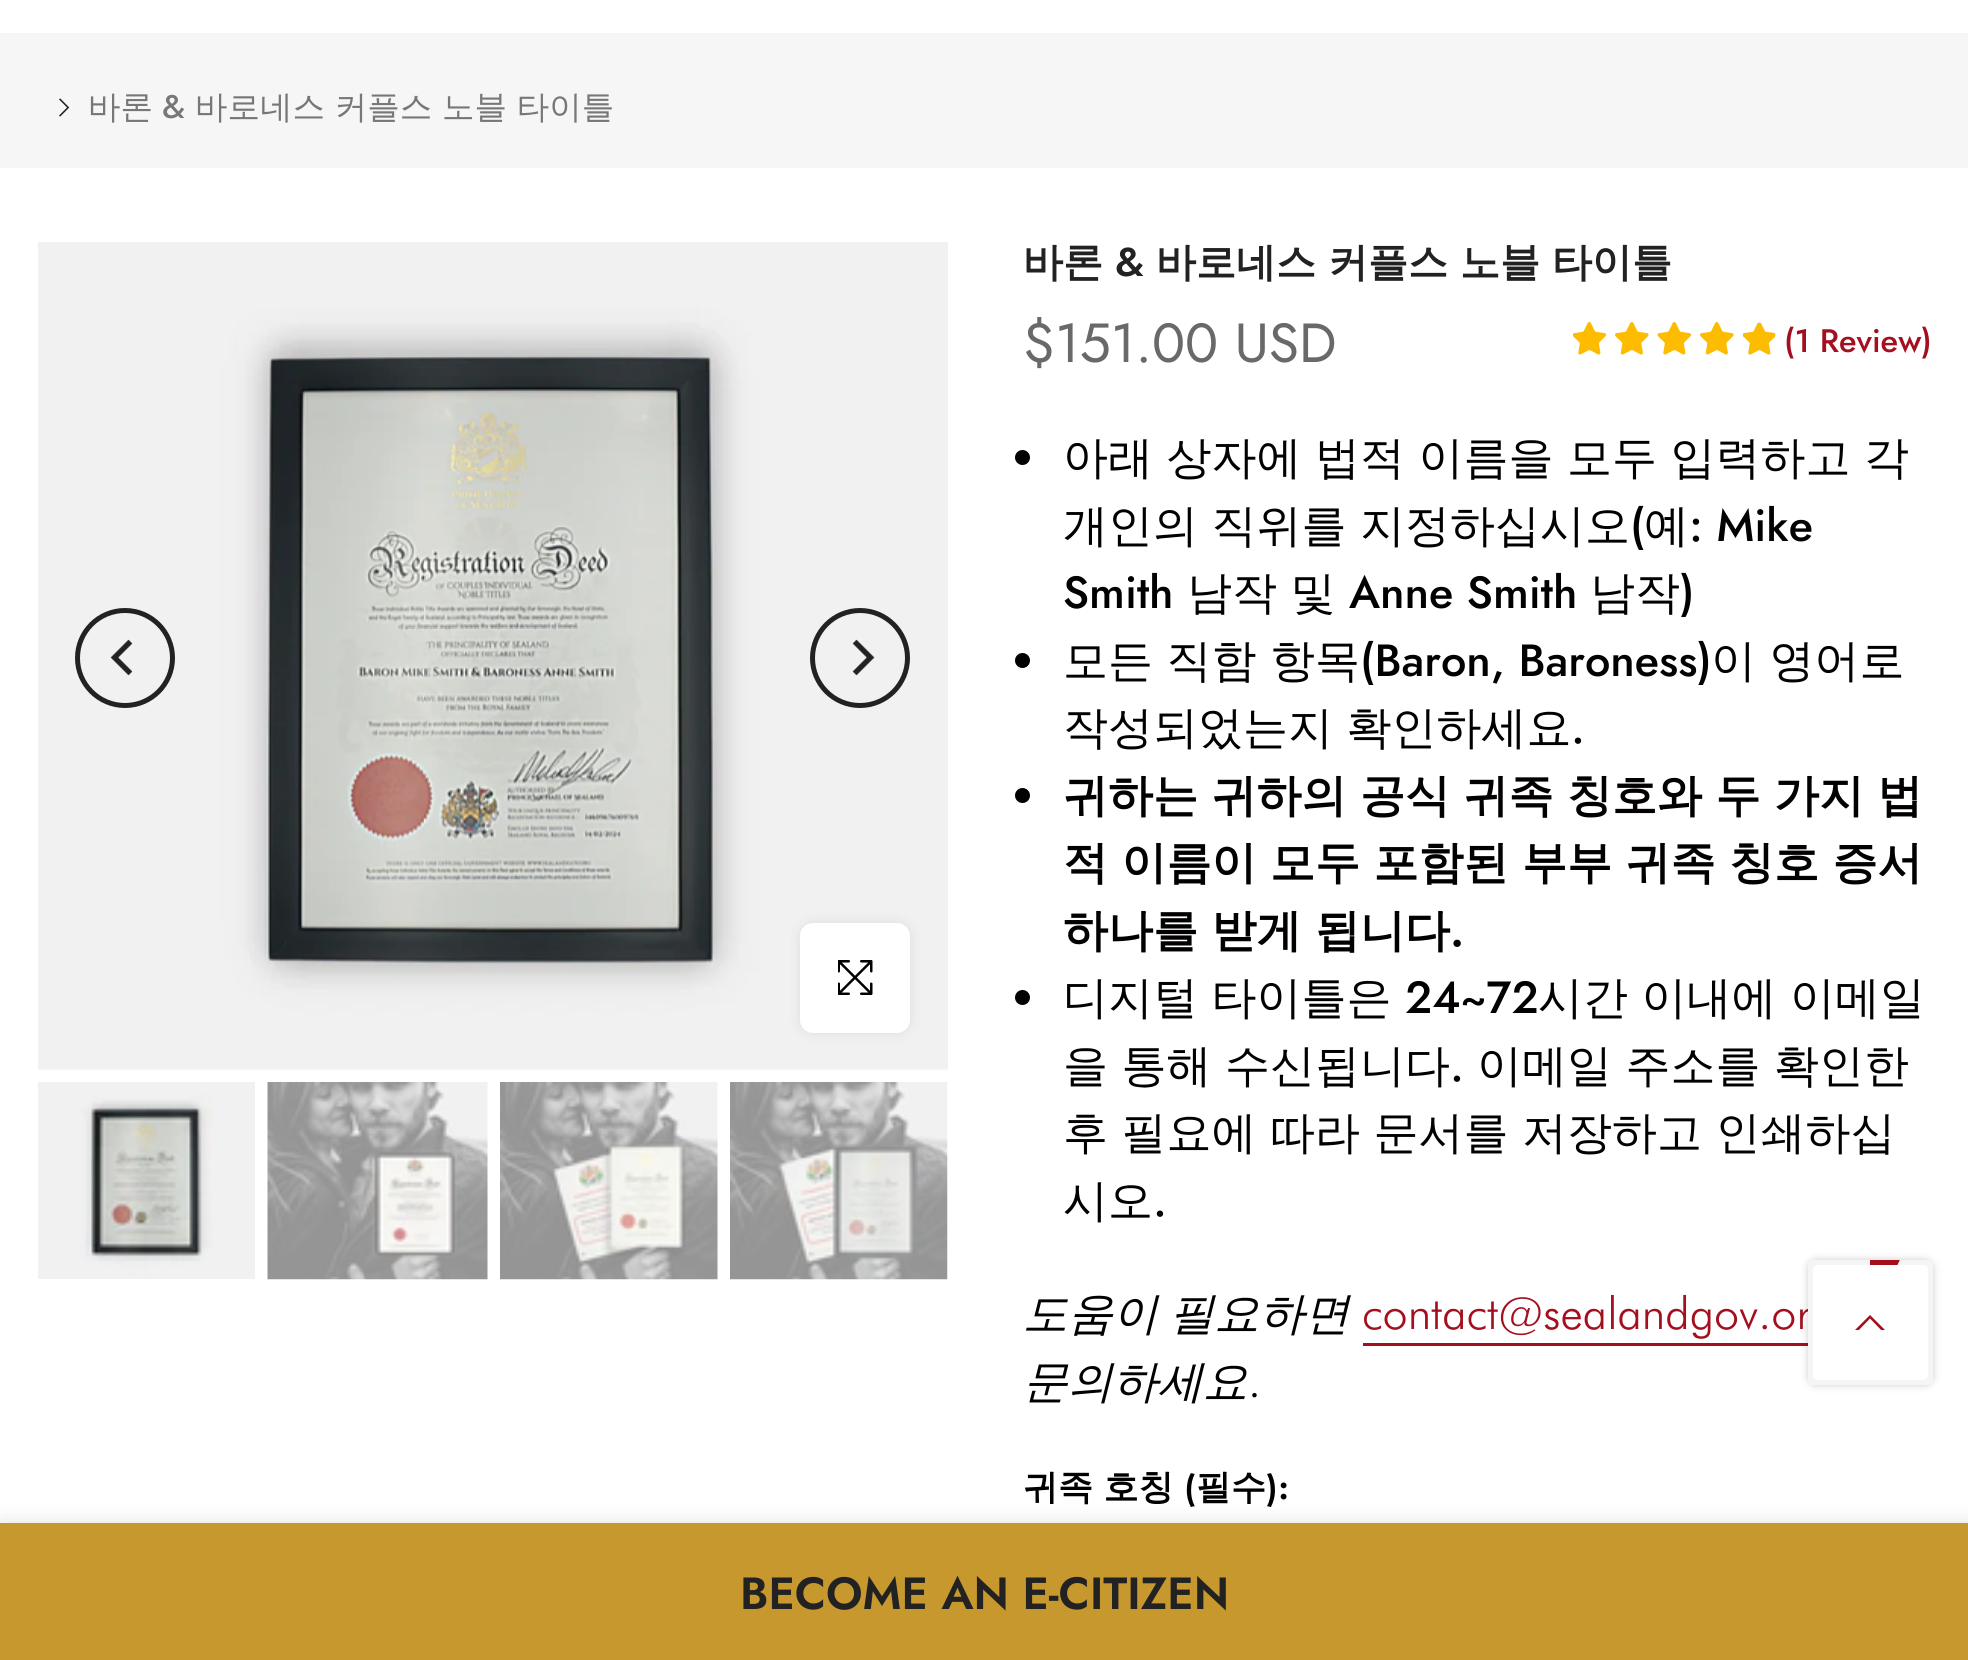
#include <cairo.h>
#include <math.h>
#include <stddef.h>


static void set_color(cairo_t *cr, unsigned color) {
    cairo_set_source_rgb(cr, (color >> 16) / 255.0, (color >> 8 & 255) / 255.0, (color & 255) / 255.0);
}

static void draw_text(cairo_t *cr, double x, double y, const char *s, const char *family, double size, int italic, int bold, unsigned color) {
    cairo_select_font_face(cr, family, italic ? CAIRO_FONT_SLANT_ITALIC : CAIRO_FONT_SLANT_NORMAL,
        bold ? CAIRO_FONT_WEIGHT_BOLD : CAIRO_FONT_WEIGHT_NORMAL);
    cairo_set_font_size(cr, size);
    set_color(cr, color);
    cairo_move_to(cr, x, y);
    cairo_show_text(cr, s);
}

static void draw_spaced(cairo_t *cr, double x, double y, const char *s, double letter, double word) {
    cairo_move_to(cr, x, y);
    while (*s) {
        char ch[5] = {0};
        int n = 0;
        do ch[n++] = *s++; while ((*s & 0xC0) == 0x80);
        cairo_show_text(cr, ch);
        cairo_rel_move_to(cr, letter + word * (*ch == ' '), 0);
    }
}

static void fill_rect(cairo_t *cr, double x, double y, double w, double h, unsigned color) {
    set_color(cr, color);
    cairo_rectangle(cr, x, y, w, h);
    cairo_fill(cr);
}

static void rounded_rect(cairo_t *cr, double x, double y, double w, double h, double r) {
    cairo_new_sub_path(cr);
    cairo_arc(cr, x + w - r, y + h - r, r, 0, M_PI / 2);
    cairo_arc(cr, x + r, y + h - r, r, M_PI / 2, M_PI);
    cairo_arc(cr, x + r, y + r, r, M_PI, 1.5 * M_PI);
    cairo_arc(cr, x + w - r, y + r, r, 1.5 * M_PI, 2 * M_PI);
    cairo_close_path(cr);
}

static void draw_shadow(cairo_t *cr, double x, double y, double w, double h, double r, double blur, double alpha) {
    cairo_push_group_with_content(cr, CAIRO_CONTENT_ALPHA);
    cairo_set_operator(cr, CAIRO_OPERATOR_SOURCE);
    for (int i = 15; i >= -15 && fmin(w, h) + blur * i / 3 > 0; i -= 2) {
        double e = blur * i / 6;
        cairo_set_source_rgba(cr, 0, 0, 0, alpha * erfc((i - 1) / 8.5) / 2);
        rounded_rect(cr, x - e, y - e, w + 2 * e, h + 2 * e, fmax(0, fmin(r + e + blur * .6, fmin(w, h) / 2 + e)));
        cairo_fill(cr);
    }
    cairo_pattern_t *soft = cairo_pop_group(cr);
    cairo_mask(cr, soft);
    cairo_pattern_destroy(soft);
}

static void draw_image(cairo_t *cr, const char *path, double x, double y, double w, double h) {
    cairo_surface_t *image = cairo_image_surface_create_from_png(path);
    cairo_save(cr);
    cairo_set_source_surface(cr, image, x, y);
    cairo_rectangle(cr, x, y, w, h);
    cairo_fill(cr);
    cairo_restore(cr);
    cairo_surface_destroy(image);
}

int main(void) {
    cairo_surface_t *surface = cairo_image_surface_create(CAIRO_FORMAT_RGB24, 1968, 1660);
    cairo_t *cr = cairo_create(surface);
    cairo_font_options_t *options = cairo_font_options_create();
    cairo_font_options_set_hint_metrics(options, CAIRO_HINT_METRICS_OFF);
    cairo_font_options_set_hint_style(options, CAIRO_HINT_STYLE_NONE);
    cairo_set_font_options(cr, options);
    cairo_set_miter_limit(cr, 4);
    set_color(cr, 0xFFFFFF);
    cairo_paint(cr);
    fill_rect(cr, 0, 33, 1968, 135, 0xF6F6F6);
    draw_image(cr, "assets/img1.png", 59, 98, 11, 19);
    draw_text(cr, 88, 118, "바론", "WenQuanYi Zen Hei Medium", 32.5, 0, 0, 0x777777);
    draw_text(cr, 162, 118, "&", "Jost Medium", 32.5, 0, 0, 0x777777);
    draw_text(cr, 195, 118, "바로네스 커플스 노블 타이틀", "WenQuanYi Zen Hei Medium", 32.5, 0, 0, 0x777777);
    draw_image(cr, "assets/img2.png", 38, 242, 910, 828);
    cairo_arc(cr, 125, 658, 47.5, 0, 2 * M_PI);
    set_color(cr, 0x222222);
    cairo_set_line_width(cr, 5);
    cairo_stroke(cr);
    draw_image(cr, "assets/img3.png", 110, 639, 23, 37);
    cairo_arc(cr, 860, 658, 47.5, 0, 2 * M_PI);
    cairo_stroke(cr);
    draw_image(cr, "assets/img4.png", 852, 639, 23, 37);
    set_color(cr, 0x000000);
    draw_shadow(cr, 800, 923, 110, 110, 13, 6, 0.09);
    set_color(cr, 0xFFFFFF);
    rounded_rect(cr, 800, 923, 110, 110, 13);
    cairo_fill(cr);
    draw_image(cr, "assets/img5.png", 838, 960, 35, 35);
    draw_image(cr, "assets/img6.png", 38, 1082, 217, 197);
    draw_image(cr, "assets/img7.png", 267, 1082, 221, 198);
    draw_image(cr, "assets/img8.png", 500, 1082, 218, 198);
    draw_image(cr, "assets/img9.png", 730, 1082, 218, 198);
    draw_text(cr, 1023, 276, "바론", "WenQuanYi Zen Hei", 40, 0, 1, 0x222222);
    draw_text(cr, 1115, 276, "&", "Jost SemiBold", 40, 0, 0, 0x222222);
    draw_text(cr, 1156, 276, "바로네스 커플스 노블 타이틀", "WenQuanYi Zen Hei", 40, 0, 1, 0x222222);
    draw_text(cr, 1023, 362, "$151.00 USD", "Jost", 55, 0, 0, 0x696969);
    draw_image(cr, "assets/img10.png", 1573, 322, 34, 33);
    draw_image(cr, "assets/img11.png", 1615, 322, 34, 33);
    draw_image(cr, "assets/img12.png", 1657, 322, 35, 33);
    draw_image(cr, "assets/img11.png", 1700, 322, 34, 33);
    draw_image(cr, "assets/img13.png", 1742, 322, 34, 33);
    draw_image(cr, "assets/img14.png", 1743, 323, 32, 32);
    draw_text(cr, 1784, 352, "(1 Review)", "Jost Medium", 32.5, 0, 0, 0xA30F1E);
    set_color(cr, 0x020000);
    cairo_new_path(cr);
    cairo_arc(cr, 1022.5, 457.5, 7.5, 0, 2 * M_PI);
    cairo_fill(cr);
    draw_text(cr, 1063, 473, "아래 상자에 법적 이름을 모두 입력하고 각", "WenQuanYi Zen Hei Medium", 45, 0, 0, 0x020000);
    draw_text(cr, 1063, 541, "개인의 직위를 지정하십시오", "WenQuanYi Zen Hei Medium", 45, 0, 0, 0x020000);
    draw_text(cr, 1630, 541, "(", "Jost Medium", 45, 0, 0, 0x020000);
    draw_text(cr, 1644, 541, "예", "WenQuanYi Zen Hei Medium", 45, 0, 0, 0x020000);
    draw_text(cr, 1689, 541, ": Mike", "Jost Medium", 45, 0, 0, 0x020000);
    draw_text(cr, 1063, 608, "Smith", "Jost Medium", 45, 0, 0, 0x020000);
    draw_text(cr, 1187, 608, "남작 및", "WenQuanYi Zen Hei Medium", 45, 0, 0, 0x020000);
    draw_text(cr, 1349, 608, "Anne Smith", "Jost Medium", 45, 0, 0, 0x020000);
    draw_text(cr, 1590, 608, "남작", "WenQuanYi Zen Hei Medium", 45, 0, 0, 0x020000);
    draw_text(cr, 1680, 608, ")", "Jost Medium", 45, 0, 0, 0x020000);
    cairo_new_path(cr);
    cairo_arc(cr, 1022.5, 660.5, 7.5, 0, 2 * M_PI);
    cairo_fill(cr);
    draw_text(cr, 1063, 676, "모든 직함 항목", "WenQuanYi Zen Hei Medium", 45, 0, 0, 0x020000);
    draw_text(cr, 1360, 676, "(Baron, Baroness)", "Jost Medium", 45, 0, 0, 0x020000);
    draw_text(cr, 1711, 676, "이 영어로", "WenQuanYi Zen Hei Medium", 45, 0, 0, 0x020000);
    draw_text(cr, 1063, 743, "작성되었는지 확인하세요", "WenQuanYi Zen Hei Medium", 45, 0, 0, 0x020000);
    draw_text(cr, 1571, 743, ".", "Jost Medium", 45, 0, 0, 0x020000);
    cairo_new_path(cr);
    cairo_arc(cr, 1022.5, 795.5, 7.5, 0, 2 * M_PI);
    cairo_fill(cr);
    draw_text(cr, 1063, 811, "귀하는 귀하의 공식 귀족 칭호와 두 가지 법", "WenQuanYi Zen Hei", 45, 0, 1, 0x020000);
    draw_text(cr, 1063, 878, "적 이름이 모두 포함된 부부 귀족 칭호 증서", "WenQuanYi Zen Hei", 45, 0, 1, 0x020000);
    draw_text(cr, 1063, 946, "하나를 받게 됩니다", "WenQuanYi Zen Hei", 45, 0, 1, 0x020000);
    draw_text(cr, 1450, 946, ".", "Jost SemiBold", 45, 0, 0, 0x020000);
    cairo_new_path(cr);
    cairo_arc(cr, 1022.5, 997.5, 7.5, 0, 2 * M_PI);
    cairo_fill(cr);
    draw_text(cr, 1063, 1013, "디지털 타이틀은", "WenQuanYi Zen Hei Medium", 45, 0, 0, 0x020000);
    draw_text(cr, 1405, 1013, "24~72", "Jost Medium", 45, 0, 0, 0x020000);
    draw_text(cr, 1538, 1013, "시간 이내에 이메일", "WenQuanYi Zen Hei Medium", 45, 0, 0, 0x020000);
    draw_text(cr, 1063, 1081, "을 통해 수신됩니다", "WenQuanYi Zen Hei Medium", 45, 0, 0, 0x020000);
    draw_text(cr, 1450, 1081, ".", "Jost Medium", 45, 0, 0, 0x020000);
    draw_text(cr, 1477, 1081, "이메일 주소를 확인한", "WenQuanYi Zen Hei Medium", 45, 0, 0, 0x020000);
    draw_text(cr, 1063, 1148, "후 필요에 따라 문서를 저장하고 인쇄하십", "WenQuanYi Zen Hei Medium", 45, 0, 0, 0x020000);
    draw_text(cr, 1063, 1216, "시오", "WenQuanYi Zen Hei Medium", 45, 0, 0, 0x020000);
    draw_text(cr, 1153, 1216, ".", "Jost Medium", 45, 0, 0, 0x020000);
    cairo_select_font_face(cr, "WenQuanYi Zen Hei Medium", CAIRO_FONT_SLANT_ITALIC, CAIRO_FONT_WEIGHT_NORMAL);
    draw_spaced(cr, 1023, 1329, "도움이 필요하면", 0, -2);
    draw_text(cr, 1362, 1329, "contact@sealandgov.or", "Futura Light", 45, 0, 0, 0xA30F1E);
    fill_rect(cr, 1363, 1343, 445, 3, 0xA30F1E);
    draw_text(cr, 1023, 1397, "문의하세요", "WenQuanYi Zen Hei Medium", 45, 1, 0, 0x020000);
    draw_text(cr, 1248, 1397, ".", "Futura Light", 45, 0, 0, 0x020000);
    draw_text(cr, 1023, 1499, "귀족 호칭", "WenQuanYi Zen Hei", 35, 0, 1, 0x020000);
    draw_text(cr, 1184, 1499, "(", "Futura Black", 35, 0, 0, 0x020000);
    draw_text(cr, 1196, 1499, "필수", "WenQuanYi Zen Hei", 35, 0, 1, 0x020000);
    draw_text(cr, 1266, 1499, "):", "Futura Black", 35, 0, 0, 0x020000);
    set_color(cr, 0x000000);
    draw_shadow(cr, 1808, 1260, 125, 125, 8, 4, 0.2);
    set_color(cr, 0xA30F1E);
    cairo_new_path(cr);
    cairo_move_to(cr, 1870, 1322);
    cairo_line_to(cr, 1900, 1260);
    cairo_line_to(cr, 1870, 1260);
    cairo_close_path(cr);
    cairo_fill(cr);
    set_color(cr, 0xF5F5F5);
    cairo_new_path(cr);
    cairo_move_to(cr, 1870, 1322);
    cairo_line_to(cr, 1870, 1260);
    cairo_line_to(cr, 1813, 1260);
    cairo_curve_to(cr, 1810, 1260, 1808, 1262, 1808, 1265);
    cairo_line_to(cr, 1808, 1380);
    cairo_curve_to(cr, 1808, 1383, 1810, 1385, 1813, 1385);
    cairo_line_to(cr, 1928, 1385);
    cairo_curve_to(cr, 1931, 1385, 1933, 1383, 1933, 1380);
    cairo_line_to(cr, 1933, 1265);
    cairo_curve_to(cr, 1933, 1262, 1931, 1260, 1928, 1260);
    cairo_line_to(cr, 1900, 1260);
    cairo_close_path(cr);
    cairo_fill(cr);
    set_color(cr, 0xFFFFFF);
    rounded_rect(cr, 1813, 1265, 115, 115, 5);
    cairo_fill(cr);
    cairo_save(cr);
    cairo_rectangle(cr, 1855, 1315, 30, 15);
    cairo_clip(cr);
    set_color(cr, 0xA30F1E);
    cairo_new_path(cr);
    cairo_move_to(cr, 1872, 1317);
    cairo_line_to(cr, 1870, 1315);
    cairo_line_to(cr, 1855, 1330);
    cairo_line_to(cr, 1857, 1332);
    cairo_line_to(cr, 1870, 1318.5);
    cairo_line_to(cr, 1883, 1332);
    cairo_line_to(cr, 1885, 1330);
    cairo_line_to(cr, 1877.5, 1322.5);
    cairo_close_path(cr);
    cairo_fill(cr);
    cairo_restore(cr);
    set_color(cr, 0x000000);
    draw_shadow(cr, 0, 1523, 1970, 137, 0, 11, 0.12);
    fill_rect(cr, 0, 1523, 1968, 137, 0xC7982D);
    draw_text(cr, 740, 1609, "BECOME AN E-CITIZEN", "Jost SemiBold", 45, 0, 0, 0x222222);
    cairo_surface_write_to_png(surface, "output.png");
    cairo_font_options_destroy(options);
    cairo_destroy(cr);
    cairo_surface_destroy(surface);
    return 0;
}
